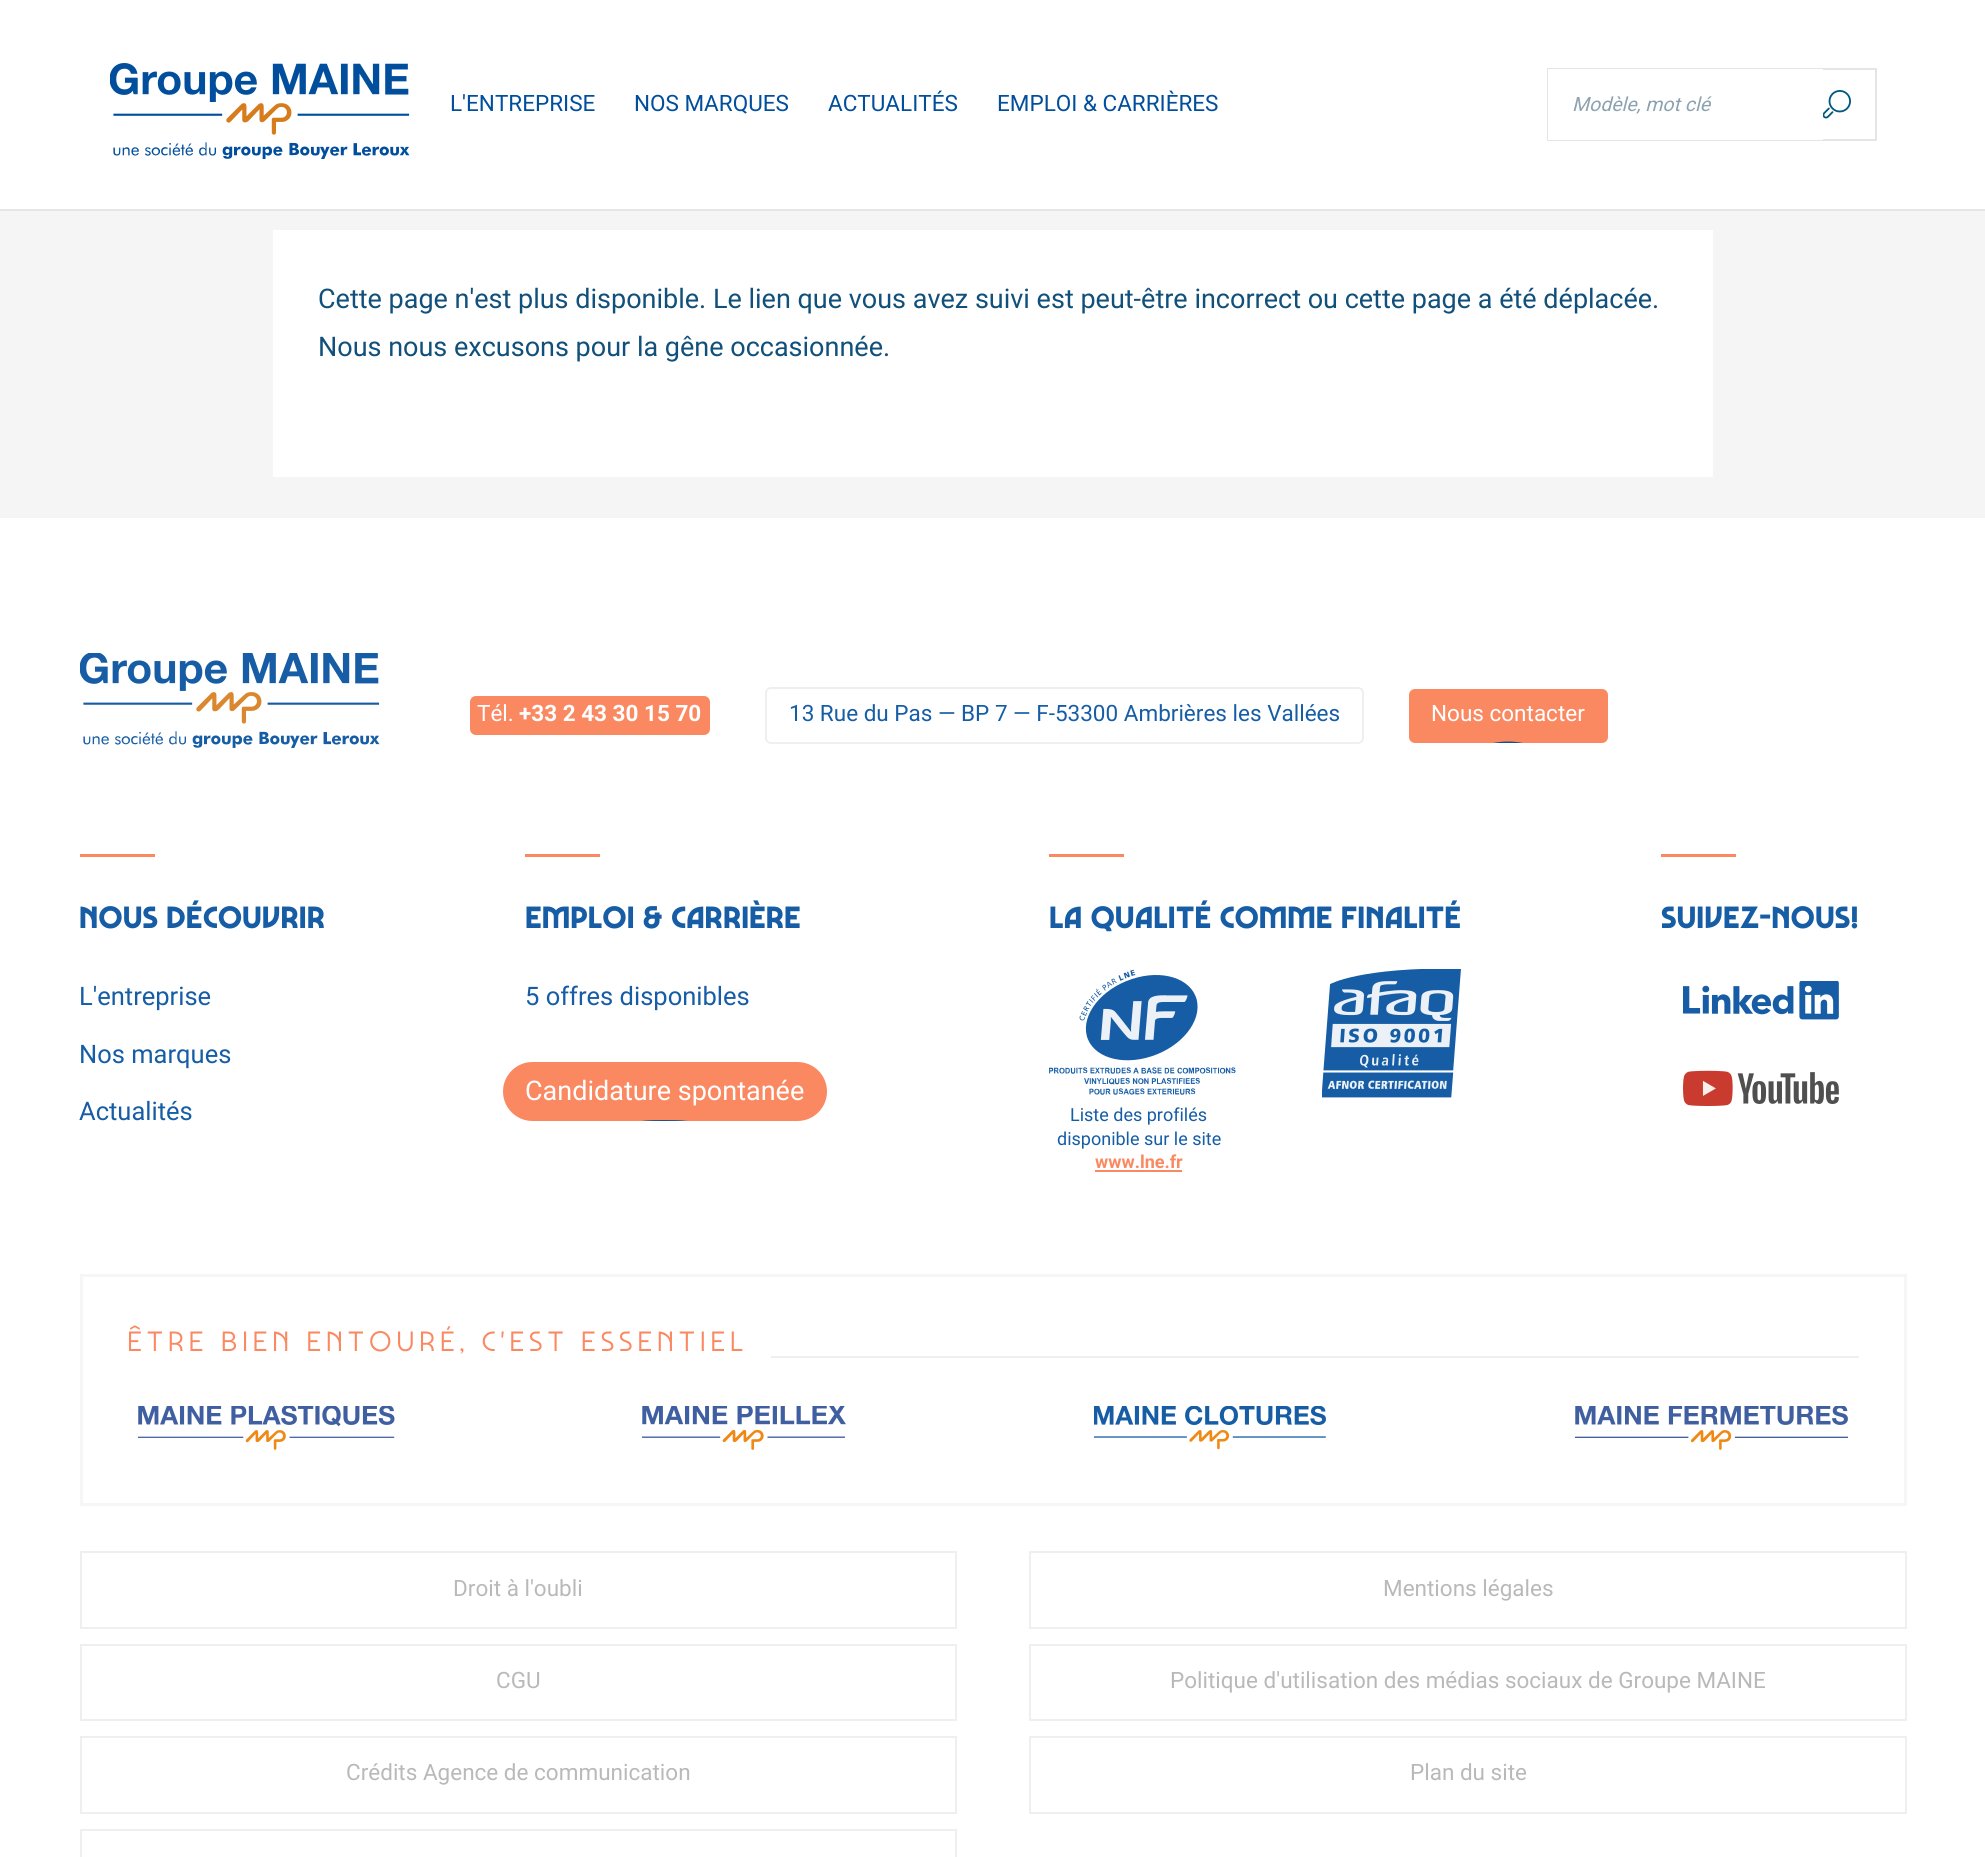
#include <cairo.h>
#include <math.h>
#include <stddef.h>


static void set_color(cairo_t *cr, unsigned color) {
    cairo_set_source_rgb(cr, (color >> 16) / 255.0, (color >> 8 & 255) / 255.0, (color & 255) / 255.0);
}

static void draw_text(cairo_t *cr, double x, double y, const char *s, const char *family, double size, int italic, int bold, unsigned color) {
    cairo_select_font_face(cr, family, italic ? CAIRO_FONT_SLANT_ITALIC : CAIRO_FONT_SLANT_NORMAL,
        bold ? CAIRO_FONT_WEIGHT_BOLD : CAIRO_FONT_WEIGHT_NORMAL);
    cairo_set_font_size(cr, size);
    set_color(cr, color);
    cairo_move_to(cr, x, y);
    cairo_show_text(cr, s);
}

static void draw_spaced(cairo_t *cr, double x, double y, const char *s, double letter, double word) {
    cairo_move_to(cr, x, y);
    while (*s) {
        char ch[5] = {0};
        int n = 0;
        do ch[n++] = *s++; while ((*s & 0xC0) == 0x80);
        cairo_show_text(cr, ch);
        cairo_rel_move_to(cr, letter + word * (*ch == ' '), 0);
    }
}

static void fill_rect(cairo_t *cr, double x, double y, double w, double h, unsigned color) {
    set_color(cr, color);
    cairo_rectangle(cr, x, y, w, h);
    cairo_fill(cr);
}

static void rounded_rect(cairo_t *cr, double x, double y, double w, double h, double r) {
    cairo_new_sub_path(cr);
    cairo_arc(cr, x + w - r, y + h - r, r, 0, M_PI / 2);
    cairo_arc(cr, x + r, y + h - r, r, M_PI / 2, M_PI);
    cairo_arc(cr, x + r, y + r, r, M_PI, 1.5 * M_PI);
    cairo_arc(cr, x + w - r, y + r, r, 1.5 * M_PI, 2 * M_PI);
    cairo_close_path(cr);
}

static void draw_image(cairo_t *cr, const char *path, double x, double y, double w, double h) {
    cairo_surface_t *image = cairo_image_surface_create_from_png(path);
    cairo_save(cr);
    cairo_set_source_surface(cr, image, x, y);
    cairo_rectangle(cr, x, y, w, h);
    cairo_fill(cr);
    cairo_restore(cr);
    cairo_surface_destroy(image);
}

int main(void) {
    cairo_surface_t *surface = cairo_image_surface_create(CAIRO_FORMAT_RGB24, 1985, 1857);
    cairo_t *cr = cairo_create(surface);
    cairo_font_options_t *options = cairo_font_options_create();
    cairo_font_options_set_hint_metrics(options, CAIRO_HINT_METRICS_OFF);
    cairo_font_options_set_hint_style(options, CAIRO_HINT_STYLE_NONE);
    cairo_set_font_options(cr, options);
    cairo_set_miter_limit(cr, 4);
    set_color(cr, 0xF5F5F5);
    cairo_paint(cr);
    fill_rect(cr, 0, 0, 1985, 209, 0xFFFFFF);
    fill_rect(cr, 0, 209, 1985, 2, 0xE5E5E5);
    draw_image(cr, "assets/img1.png", 110, 63, 300, 96);
    draw_text(cr, 450, 111, "L'ENTREPRISE", "Roboto", 22.5, 0, 0, 0x004E9C);
    draw_text(cr, 634, 111, "NOS MARQUES", "Roboto", 22.5, 0, 0, 0x004E9C);
    draw_text(cr, 828, 111, "ACTUALITÉS", "Roboto", 22.5, 0, 0, 0x004E9C);
    draw_text(cr, 997, 111, "EMPLOI & CARRIÈRES", "Roboto", 22.5, 0, 0, 0x004E9C);
    cairo_rectangle(cr, 1548, 69, 328, 71);
    set_color(cr, 0xE5E5E5);
    cairo_stroke(cr);
    fill_rect(cr, 1548, 69, 275, 71, 0xFFFFFF);
    draw_text(cr, 1572, 111, "Modèle, mot clé", "Roboto", 19.5, 1, 0, 0x8DA2B1);
    draw_image(cr, "assets/img2.png", 1823, 90, 28, 29);
    fill_rect(cr, 273, 230, 1440, 247, 0xFFFFFF);
    draw_text(cr, 318, 308, "Cette page n'est plus disponible. Le lien que vous avez suivi est peut-être incorrect ou cette page a été déplacée.", "Roboto", 27, 0, 0, 0x11507B);
    draw_text(cr, 318, 356, "Nous nous excusons pour la gêne occasionnée.", "Roboto", 27, 0, 0, 0x11507B);
    fill_rect(cr, 0, 518, 1985, 1339, 0xFFFFFF);
    draw_image(cr, "assets/img3.png", 80, 653, 300, 95);
    set_color(cr, 0xFA8962);
    rounded_rect(cr, 470, 696, 240, 39, 6);
    cairo_fill(cr);
    draw_text(cr, 477, 721, "Tél.", "Roboto", 22.5, 0, 0, 0xFFFFFF);
    draw_text(cr, 519, 721, "+33 2 43 30 15 70", "Roboto", 22.5, 0, 1, 0xFFFFFF);
    rounded_rect(cr, 766, 688, 597, 55, 5);
    set_color(cr, 0xEFEFEF);
    cairo_stroke(cr);
    draw_text(cr, 789, 721, "13 Rue du Pas — BP 7 — F-53300 Ambrières les Vallées", "Roboto", 22.5, 0, 0, 0x165DA5);
    set_color(cr, 0xFA8962);
    rounded_rect(cr, 1409, 689, 199, 54, 6);
    cairo_fill(cr);
    draw_text(cr, 1431, 721, "Nous contacter", "Roboto", 22.5, 0, 0, 0xFFFFFF);
    set_color(cr, 0x165089);
    cairo_new_path(cr);
    cairo_move_to(cr, 1508, 741.5);
    cairo_curve_to(cr, 1513, 741.5, 1518, 742, 1523, 743);
    cairo_line_to(cr, 1493, 743);
    cairo_curve_to(cr, 1498, 742, 1503, 741.5, 1508, 741.5);
    cairo_close_path(cr);
    cairo_fill(cr);
    fill_rect(cr, 80, 854, 75, 3, 0xFA8962);
    draw_text(cr, 79, 928, "NOUS DÉCOUVRIR", "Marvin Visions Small", 33, 0, 1, 0x165DA5);
    draw_text(cr, 79, 1005, "L'entreprise", "Roboto", 25.5, 0, 0, 0x165DA5);
    draw_text(cr, 79, 1063, "Nos marques", "Roboto", 25.5, 0, 0, 0x165DA5);
    draw_text(cr, 79, 1120, "Actualités", "Roboto", 25.5, 0, 0, 0x165DA5);
    fill_rect(cr, 525, 854, 75, 3, 0xFA8962);
    draw_text(cr, 525, 928, "EMPLOI & CARRIÈRE", "Marvin Visions Small", 33, 0, 1, 0x165DA5);
    draw_text(cr, 525, 1005, "5 offres disponibles", "Roboto", 25.5, 0, 0, 0x165DA5);
    set_color(cr, 0xFA8962);
    rounded_rect(cr, 503, 1062, 324, 59, 29.5);
    cairo_fill(cr);
    draw_text(cr, 525, 1100, "Candidature spontanée", "Roboto", 27, 0, 0, 0xFFFFFF);
    set_color(cr, 0x165089);
    cairo_new_path(cr);
    cairo_move_to(cr, 664, 1120);
    cairo_curve_to(cr, 672, 1120, 680, 1120, 688, 1121);
    cairo_line_to(cr, 641, 1121);
    cairo_curve_to(cr, 649, 1120, 657, 1120, 664, 1120);
    cairo_close_path(cr);
    cairo_fill(cr);
    fill_rect(cr, 1049, 854, 75, 3, 0xFA8962);
    draw_text(cr, 1049, 928, "LA QUALITÉ COMME FINALITÉ", "Marvin Visions Small", 33, 0, 1, 0x165DA5);
    draw_image(cr, "assets/img4.png", 1322, 969, 139, 129);
    draw_image(cr, "assets/img5.png", 1049, 969, 187, 126);
    draw_text(cr, 1070, 1121, "Liste des profilés", "Roboto", 18, 0, 0, 0x165DA5);
    draw_text(cr, 1057, 1145, "disponible sur le site", "Roboto", 18, 0, 0, 0x165DA5);
    draw_text(cr, 1095, 1168, "www.lne.fr", "Roboto", 18, 0, 1, 0xFA8962);
    fill_rect(cr, 1095, 1170, 87, 2, 0xFA8962);
    fill_rect(cr, 1661, 854, 75, 3, 0xFA8962);
    draw_text(cr, 1661, 928, "SUIVEZ-NOUS!", "Marvin Visions Small", 33, 0, 1, 0x165DA5);
    draw_image(cr, "assets/img6.png", 1683, 981, 156, 39);
    draw_image(cr, "assets/img7.png", 1683, 1070, 156, 36);
    cairo_rectangle(cr, 81.5, 1275.5, 1824, 229);
    set_color(cr, 0xF6F6F6);
    cairo_set_line_width(cr, 3);
    cairo_stroke(cr);
    cairo_select_font_face(cr, "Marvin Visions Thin", CAIRO_FONT_SLANT_NORMAL, CAIRO_FONT_WEIGHT_NORMAL);
    cairo_set_font_size(cr, 30);
    set_color(cr, 0xFA8962);
    draw_spaced(cr, 127, 1351, "ÊTRE BIEN ENTOURÉ, C'EST ESSENTIEL", 4.5, 0);
    fill_rect(cr, 771, 1356, 1088, 2, 0xEFEFEF);
    draw_image(cr, "assets/img8.png", 138, 1406, 257, 44);
    draw_image(cr, "assets/img9.png", 642, 1406, 204, 44);
    draw_image(cr, "assets/img10.png", 1094, 1406, 232, 44);
    draw_image(cr, "assets/img11.png", 1575, 1406, 273, 44);
    cairo_rectangle(cr, 81, 1552, 875, 76);
    cairo_set_line_width(cr, 2);
    cairo_stroke(cr);
    draw_text(cr, 453, 1596, "Droit à l'oubli", "Roboto", 22.5, 0, 0, 0xB9B9B9);
    cairo_rectangle(cr, 1030, 1552, 876, 76);
    set_color(cr, 0xEFEFEF);
    cairo_stroke(cr);
    draw_text(cr, 1383, 1596, "Mentions légales", "Roboto", 22.5, 0, 0, 0xB9B9B9);
    cairo_rectangle(cr, 81, 1645, 875, 75);
    set_color(cr, 0xEFEFEF);
    cairo_stroke(cr);
    draw_text(cr, 496, 1688, "CGU", "Roboto", 22.5, 0, 0, 0xB9B9B9);
    cairo_rectangle(cr, 1030, 1645, 876, 75);
    set_color(cr, 0xEFEFEF);
    cairo_stroke(cr);
    draw_text(cr, 1170, 1688, "Politique d'utilisation des médias sociaux de Groupe MAINE", "Roboto", 22.5, 0, 0, 0xB9B9B9);
    cairo_rectangle(cr, 81, 1737, 875, 76);
    set_color(cr, 0xEFEFEF);
    cairo_stroke(cr);
    draw_text(cr, 346, 1780, "Crédits Agence de communication", "Roboto", 22.5, 0, 0, 0xB9B9B9);
    cairo_rectangle(cr, 1030, 1737, 876, 76);
    set_color(cr, 0xEFEFEF);
    cairo_stroke(cr);
    draw_text(cr, 1410, 1780, "Plan du site", "Roboto", 22.5, 0, 0, 0xB9B9B9);
    cairo_rectangle(cr, 81, 1830, 875, 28);
    set_color(cr, 0xEFEFEF);
    cairo_stroke(cr);
    cairo_surface_write_to_png(surface, "output.png");
    cairo_font_options_destroy(options);
    cairo_destroy(cr);
    cairo_surface_destroy(surface);
    return 0;
}
